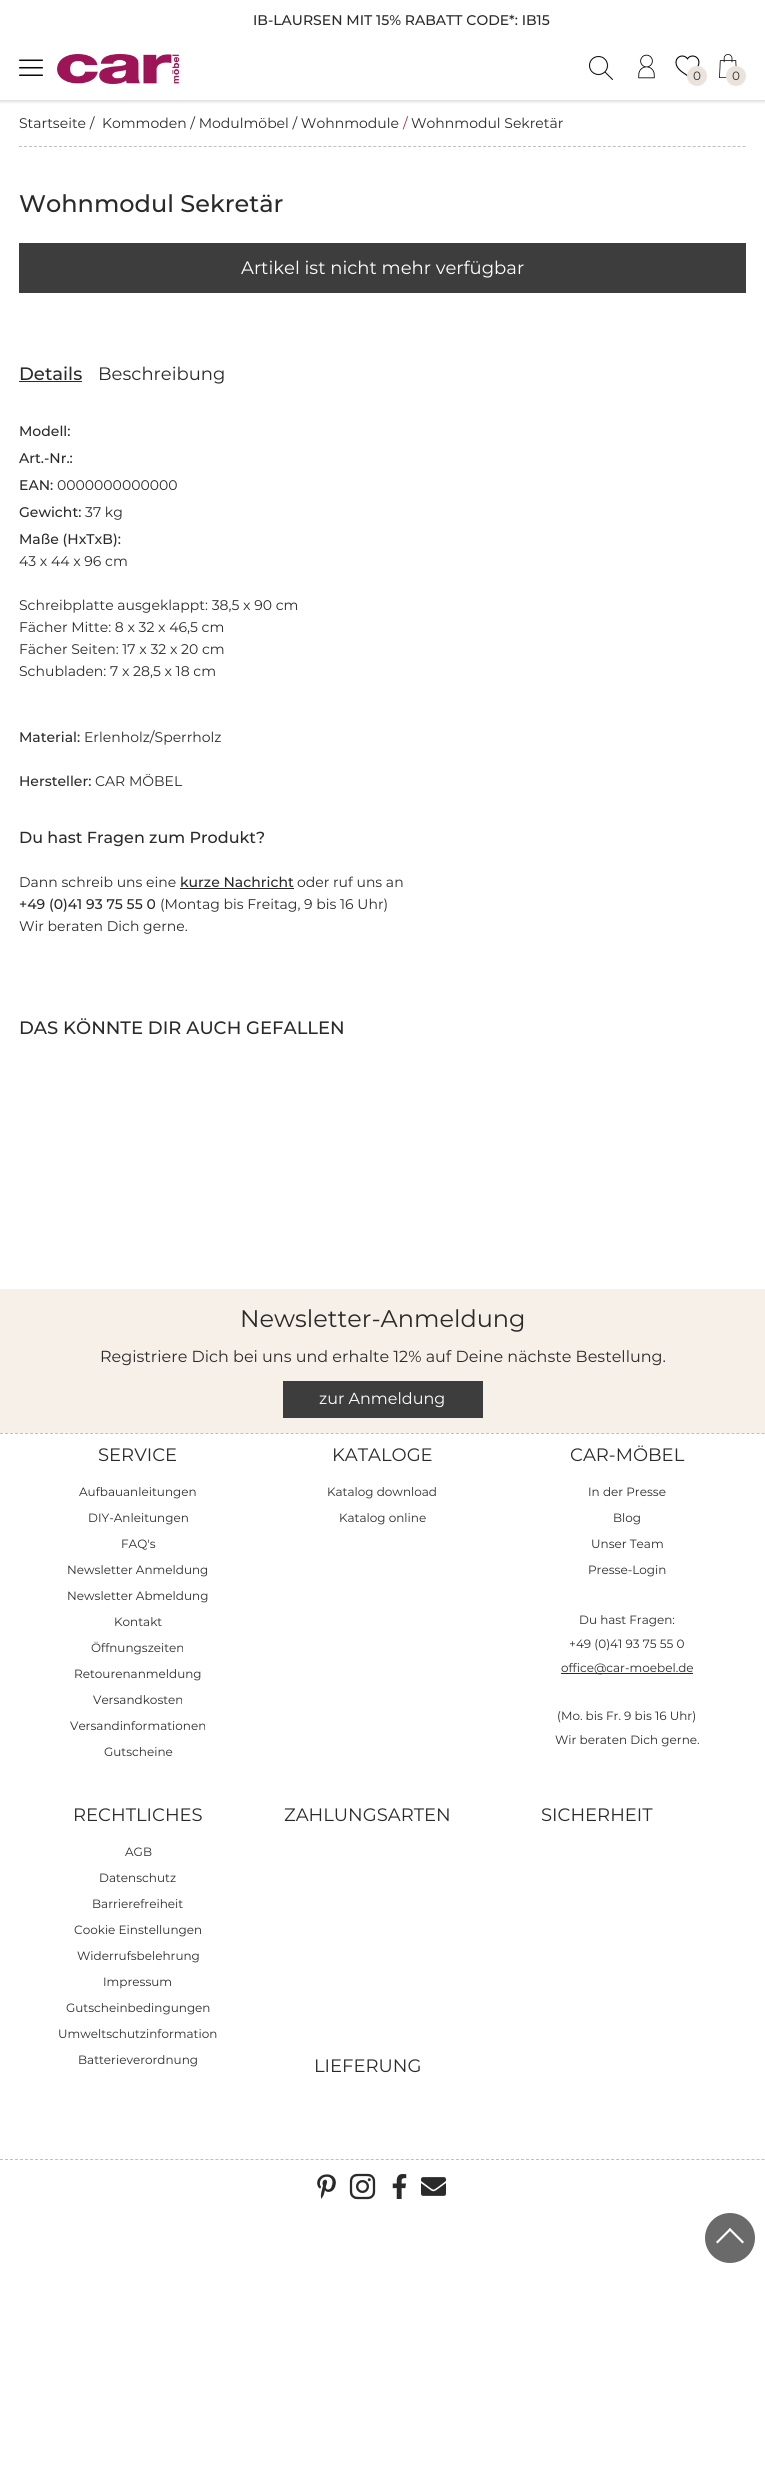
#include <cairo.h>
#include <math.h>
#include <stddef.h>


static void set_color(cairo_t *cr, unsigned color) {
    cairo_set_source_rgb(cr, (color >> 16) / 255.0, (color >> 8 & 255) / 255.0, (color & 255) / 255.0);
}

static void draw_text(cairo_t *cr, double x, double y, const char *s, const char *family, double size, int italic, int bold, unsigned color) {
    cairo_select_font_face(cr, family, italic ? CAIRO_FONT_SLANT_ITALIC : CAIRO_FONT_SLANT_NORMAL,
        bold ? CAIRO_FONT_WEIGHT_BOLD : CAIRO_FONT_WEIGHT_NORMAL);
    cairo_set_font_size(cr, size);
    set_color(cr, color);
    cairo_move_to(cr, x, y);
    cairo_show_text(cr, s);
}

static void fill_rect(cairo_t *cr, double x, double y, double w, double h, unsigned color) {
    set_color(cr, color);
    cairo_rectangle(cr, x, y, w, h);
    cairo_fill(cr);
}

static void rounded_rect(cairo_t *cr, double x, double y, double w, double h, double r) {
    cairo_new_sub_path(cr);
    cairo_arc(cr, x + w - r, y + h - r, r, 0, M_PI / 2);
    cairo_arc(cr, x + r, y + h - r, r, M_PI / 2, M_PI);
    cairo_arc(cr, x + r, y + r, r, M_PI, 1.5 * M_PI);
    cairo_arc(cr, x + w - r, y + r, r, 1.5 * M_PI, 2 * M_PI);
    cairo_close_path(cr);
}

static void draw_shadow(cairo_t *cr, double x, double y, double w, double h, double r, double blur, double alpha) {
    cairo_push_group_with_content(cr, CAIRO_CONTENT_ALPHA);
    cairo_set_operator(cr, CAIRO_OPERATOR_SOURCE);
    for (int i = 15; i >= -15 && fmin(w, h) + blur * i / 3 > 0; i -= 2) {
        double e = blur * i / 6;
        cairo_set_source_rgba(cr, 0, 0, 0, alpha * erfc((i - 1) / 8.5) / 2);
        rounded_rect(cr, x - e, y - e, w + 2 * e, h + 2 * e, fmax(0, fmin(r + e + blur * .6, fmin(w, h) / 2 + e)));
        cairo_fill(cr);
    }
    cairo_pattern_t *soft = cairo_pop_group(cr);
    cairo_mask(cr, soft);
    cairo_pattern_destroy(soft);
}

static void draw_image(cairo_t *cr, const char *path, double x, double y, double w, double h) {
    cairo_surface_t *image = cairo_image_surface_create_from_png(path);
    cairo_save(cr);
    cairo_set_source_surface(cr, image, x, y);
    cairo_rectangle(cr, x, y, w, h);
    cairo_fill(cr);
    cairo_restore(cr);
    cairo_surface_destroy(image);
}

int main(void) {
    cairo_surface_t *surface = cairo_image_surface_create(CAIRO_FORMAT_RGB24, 765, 2477);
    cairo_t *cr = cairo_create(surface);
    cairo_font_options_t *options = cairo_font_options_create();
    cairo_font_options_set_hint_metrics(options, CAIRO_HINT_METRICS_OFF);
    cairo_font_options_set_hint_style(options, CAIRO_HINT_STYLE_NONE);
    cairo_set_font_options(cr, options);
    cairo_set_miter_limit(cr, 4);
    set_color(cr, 0xFFFFFF);
    cairo_paint(cr);
    cairo_save(cr);
    cairo_rectangle(cr, 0, 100, 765, 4);
    cairo_clip(cr);
    set_color(cr, 0x253237);
    draw_shadow(cr, 0, 1, 765, 100, 0, 2, 0.25);
    cairo_restore(cr);
    draw_text(cr, 253, 25, "IB-LAURSEN MIT 15% RABATT CODE*: IB15", "Montserrat Medium", 14, 0, 0, 0x2A2A2A);
    draw_image(cr, "assets/img1.png", 19, 59, 24, 17);
    draw_image(cr, "assets/img2.png", 57, 54, 122, 30);
    draw_image(cr, "assets/img3.png", 589, 56, 24, 24);
    draw_image(cr, "assets/img4.png", 638, 54, 17, 25);
    draw_image(cr, "assets/img5.png", 675, 55, 25, 22);
    set_color(cr, 0xEAE3DC);
    cairo_arc(cr, 697, 76, 10, 0, 2 * M_PI);
    cairo_fill(cr);
    draw_text(cr, 693, 80, "0", "Montserrat", 12, 0, 0, 0x2A2A2A);
    draw_image(cr, "assets/img6.png", 719, 54, 18, 24);
    set_color(cr, 0xEAE3DC);
    cairo_arc(cr, 736, 76, 10, 0, 2 * M_PI);
    cairo_fill(cr);
    draw_text(cr, 732, 80, "0", "Montserrat", 12, 0, 0, 0x2A2A2A);
    cairo_new_path(cr);
    cairo_move_to(cr, 19, 146.5);
    cairo_line_to(cr, 746, 146.5);
    set_color(cr, 0xC0C0C0);
    cairo_set_line_width(cr, 1);
    cairo_set_dash(cr, (double[]){3, 1.99}, 2, 0);
    cairo_stroke(cr);
    draw_text(cr, 19, 128, "Startseite /", "Montserrat", 14, 0, 0, 0x2A2A2A);
    draw_text(cr, 102, 128, "Kommoden / Modulmöbel / Wohnmodule", "Montserrat", 14, 0, 0, 0x2A2A2A);
    draw_text(cr, 403, 128, "/", "Montserrat", 14, 0, 0, 0x97335D);
    draw_text(cr, 411, 128, "Wohnmodul Sekretär", "Montserrat", 14, 0, 0, 0x2A2A2A);
    draw_text(cr, 19, 212, "Wohnmodul Sekretär", "Montserrat Medium", 24, 0, 0, 0x2A2A2A);
    fill_rect(cr, 19, 243, 727, 50, 0x3E3D3D);
    draw_text(cr, 241, 274, "Artikel ist nicht mehr verfügbar", "Montserrat", 18, 0, 0, 0xFFFFFF);
    draw_text(cr, 19, 380, "Details", "Montserrat Medium", 18, 0, 0, 0x2A2A2A);
    fill_rect(cr, 19, 381, 63, 1, 0x2A2A2A);
    draw_text(cr, 98, 380, "Beschreibung", "Montserrat", 18, 0, 0, 0x2A2A2A);
    draw_text(cr, 19, 436, "Modell:", "Montserrat Medium", 14, 0, 0, 0x2A2A2A);
    draw_text(cr, 19, 463, "Art.-Nr.:", "Montserrat Medium", 14, 0, 0, 0x2A2A2A);
    draw_text(cr, 19, 490, "EAN:", "Montserrat Medium", 14, 0, 0, 0x2A2A2A);
    draw_text(cr, 57, 490, "0000000000000", "Montserrat", 14, 0, 0, 0x2A2A2A);
    draw_text(cr, 19, 517, "Gewicht:", "Montserrat Medium", 14, 0, 0, 0x2A2A2A);
    draw_text(cr, 85, 517, "37 kg", "Montserrat", 14, 0, 0, 0x2A2A2A);
    draw_text(cr, 19, 544, "Maße (HxTxB):", "Montserrat Medium", 14, 0, 0, 0x2A2A2A);
    draw_text(cr, 19, 566, "43 x 44 x 96 cm", "Montserrat", 14, 0, 0, 0x2A2A2A);
    draw_text(cr, 19, 610, "Schreibplatte ausgeklappt: 38,5 x 90 cm", "Montserrat", 14, 0, 0, 0x2A2A2A);
    draw_text(cr, 19, 632, "Fächer Mitte: 8 x 32 x 46,5 cm", "Montserrat", 14, 0, 0, 0x2A2A2A);
    draw_text(cr, 19, 654, "Fächer Seiten: 17 x 32 x 20 cm", "Montserrat", 14, 0, 0, 0x2A2A2A);
    draw_text(cr, 19, 676, "Schubladen: 7 x 28,5 x 18 cm", "Montserrat", 14, 0, 0, 0x2A2A2A);
    draw_text(cr, 19, 742, "Material:", "Montserrat Medium", 14, 0, 0, 0x2A2A2A);
    draw_text(cr, 84, 742, "Erlenholz/Sperrholz", "Montserrat", 14, 0, 0, 0x2A2A2A);
    draw_text(cr, 19, 786, "Hersteller:", "Montserrat Medium", 14, 0, 0, 0x2A2A2A);
    draw_text(cr, 95, 786, "CAR MÖBEL", "Montserrat", 14, 0, 0, 0x2A2A2A);
    draw_text(cr, 19, 843, "Du hast Fragen zum Produkt?", "Montserrat Medium", 16, 0, 0, 0x2A2A2A);
    draw_text(cr, 19, 887, "Dann schreib uns eine", "Montserrat", 14, 0, 0, 0x2A2A2A);
    draw_text(cr, 180, 887, "kurze Nachricht", "Montserrat Medium", 14, 0, 0, 0x2A2A2A);
    fill_rect(cr, 180, 888, 114, 1, 0x2A2A2A);
    draw_text(cr, 297, 887, "oder ruf uns an", "Montserrat", 14, 0, 0, 0x2A2A2A);
    draw_text(cr, 19, 909, "+49 (0)41 93 75 55 0", "Montserrat Medium", 14, 0, 0, 0x2A2A2A);
    draw_text(cr, 160, 909, "(Montag bis Freitag, 9 bis 16 Uhr)", "Montserrat", 14, 0, 0, 0x2A2A2A);
    draw_text(cr, 19, 931, "Wir beraten Dich gerne.", "Montserrat", 14, 0, 0, 0x2A2A2A);
    draw_text(cr, 19, 1034, "DAS KÖNNTE DIR AUCH GEFALLEN", "Montserrat Medium", 18, 0, 0, 0x2A2A2A);
    fill_rect(cr, 0, 1289, 765, 144, 0xF7F0E9);
    draw_text(cr, 240, 1327, "Newsletter-Anmeldung", "Montserrat", 24, 0, 0, 0x2A2A2A);
    draw_text(cr, 100, 1362, "Registriere Dich bei uns und erhalte 12% auf Deine nächste Bestellung.", "Montserrat", 16, 0, 0, 0x2A2A2A);
    fill_rect(cr, 283, 1381, 200, 37, 0x3E3D3D);
    draw_text(cr, 319, 1404, "zur Anmeldung", "Montserrat", 16, 0, 0, 0xFFFFFF);
    cairo_new_path(cr);
    cairo_move_to(cr, 0, 1433.5);
    cairo_line_to(cr, 765, 1433.5);
    set_color(cr, 0xC0C0C0);
    cairo_set_dash(cr, (double[]){3, 2.01}, 2, 0);
    cairo_stroke(cr);
    draw_text(cr, 98, 1461, "SERVICE", "Montserrat", 18, 0, 0, 0x2A2A2A);
    draw_text(cr, 79, 1496, "Aufbauanleitungen", "Montserrat", 12, 0, 0, 0x2A2A2A);
    draw_text(cr, 88, 1522, "DIY-Anleitungen", "Montserrat", 12, 0, 0, 0x2A2A2A);
    draw_text(cr, 121, 1548, "FAQ's", "Montserrat", 12, 0, 0, 0x2A2A2A);
    draw_text(cr, 67, 1574, "Newsletter Anmeldung", "Montserrat", 12, 0, 0, 0x2A2A2A);
    draw_text(cr, 67, 1600, "Newsletter Abmeldung", "Montserrat", 12, 0, 0, 0x2A2A2A);
    draw_text(cr, 114, 1626, "Kontakt", "Montserrat", 12, 0, 0, 0x2A2A2A);
    draw_text(cr, 91, 1652, "Öffnungszeiten", "Montserrat", 12, 0, 0, 0x2A2A2A);
    draw_text(cr, 74, 1678, "Retourenanmeldung", "Montserrat", 12, 0, 0, 0x2A2A2A);
    draw_text(cr, 93, 1704, "Versandkosten", "Montserrat", 12, 0, 0, 0x2A2A2A);
    draw_text(cr, 70, 1730, "Versandinformationen", "Montserrat", 12, 0, 0, 0x2A2A2A);
    draw_text(cr, 104, 1756, "Gutscheine", "Montserrat", 12, 0, 0, 0x2A2A2A);
    draw_text(cr, 332, 1461, "KATALOGE", "Montserrat", 18, 0, 0, 0x2A2A2A);
    draw_text(cr, 327, 1496, "Katalog download", "Montserrat", 12, 0, 0, 0x2A2A2A);
    draw_text(cr, 339, 1522, "Katalog online", "Montserrat", 12, 0, 0, 0x2A2A2A);
    draw_text(cr, 570, 1461, "CAR-MÖBEL", "Montserrat", 18, 0, 0, 0x2A2A2A);
    draw_text(cr, 588, 1496, "In der Presse", "Montserrat", 12, 0, 0, 0x2A2A2A);
    draw_text(cr, 613, 1522, "Blog", "Montserrat", 12, 0, 0, 0x2A2A2A);
    draw_text(cr, 591, 1548, "Unser Team", "Montserrat", 12, 0, 0, 0x2A2A2A);
    draw_text(cr, 588, 1574, "Presse-Login", "Montserrat", 12, 0, 0, 0x2A2A2A);
    draw_text(cr, 579, 1624, "Du hast Fragen:", "Montserrat", 12, 0, 0, 0x2A2A2A);
    draw_text(cr, 569, 1648, "+49 (0)41 93 75 55 0", "Montserrat", 12, 0, 0, 0x2A2A2A);
    fill_rect(cr, 561, 1673, 132, 1, 0x2A2A2A);
    draw_text(cr, 561, 1672, "office@car-moebel.de", "Montserrat", 12, 0, 0, 0x2A2A2A);
    draw_text(cr, 557, 1720, "(Mo. bis Fr. 9 bis 16 Uhr)", "Montserrat", 12, 0, 0, 0x2A2A2A);
    draw_text(cr, 555, 1744, "Wir beraten Dich gerne.", "Montserrat", 12, 0, 0, 0x2A2A2A);
    draw_text(cr, 73, 1821, "RECHTLICHES", "Montserrat", 18, 0, 0, 0x2A2A2A);
    draw_text(cr, 125, 1856, "AGB", "Montserrat", 12, 0, 0, 0x2A2A2A);
    draw_text(cr, 99, 1882, "Datenschutz", "Montserrat", 12, 0, 0, 0x2A2A2A);
    draw_text(cr, 92, 1908, "Barrierefreiheit", "Montserrat", 12, 0, 0, 0x2A2A2A);
    draw_text(cr, 74, 1934, "Cookie Einstellungen", "Montserrat", 12, 0, 0, 0x2A2A2A);
    draw_text(cr, 77, 1960, "Widerrufsbelehrung", "Montserrat", 12, 0, 0, 0x2A2A2A);
    draw_text(cr, 103, 1986, "Impressum", "Montserrat", 12, 0, 0, 0x2A2A2A);
    draw_text(cr, 66, 2012, "Gutscheinbedingungen", "Montserrat", 12, 0, 0, 0x2A2A2A);
    draw_text(cr, 58, 2038, "Umweltschutzinformation", "Montserrat", 12, 0, 0, 0x2A2A2A);
    draw_text(cr, 78, 2064, "Batterieverordnung", "Montserrat", 12, 0, 0, 0x2A2A2A);
    draw_text(cr, 284, 1821, "ZAHLUNGSARTEN", "Montserrat", 18, 0, 0, 0x2A2A2A);
    draw_text(cr, 314, 2072, "LIEFERUNG", "Montserrat", 18, 0, 0, 0x2A2A2A);
    draw_text(cr, 541, 1821, "SICHERHEIT", "Montserrat", 18, 0, 0, 0x2A2A2A);
    cairo_new_path(cr);
    cairo_move_to(cr, 0, 2159.5);
    cairo_line_to(cr, 765, 2159.5);
    set_color(cr, 0xC0C0C0);
    cairo_stroke(cr);
    draw_image(cr, "assets/img7.png", 317, 2174, 19, 25);
    draw_image(cr, "assets/img8.png", 349, 2173, 27, 27);
    draw_image(cr, "assets/img9.png", 392, 2174, 15, 25);
    draw_image(cr, "assets/img10.png", 421, 2177, 25, 19);
    set_color(cr, 0x6A6A6A);
    cairo_arc(cr, 730, 2238, 25, 0, 2 * M_PI);
    cairo_fill(cr);
    set_color(cr, 0xFFFFFF);
    cairo_new_path(cr);
    cairo_move_to(cr, 716, 2242);
    cairo_line_to(cr, 730, 2228);
    cairo_line_to(cr, 731.5, 2229.5);
    cairo_line_to(cr, 717.5, 2243.5);
    cairo_close_path(cr);
    cairo_fill(cr);
    cairo_new_path(cr);
    cairo_move_to(cr, 728.5, 2229.5);
    cairo_line_to(cr, 730, 2228);
    cairo_line_to(cr, 744, 2242);
    cairo_line_to(cr, 742.5, 2243.5);
    cairo_close_path(cr);
    cairo_fill(cr);
    cairo_surface_write_to_png(surface, "output.png");
    cairo_font_options_destroy(options);
    cairo_destroy(cr);
    cairo_surface_destroy(surface);
    return 0;
}
